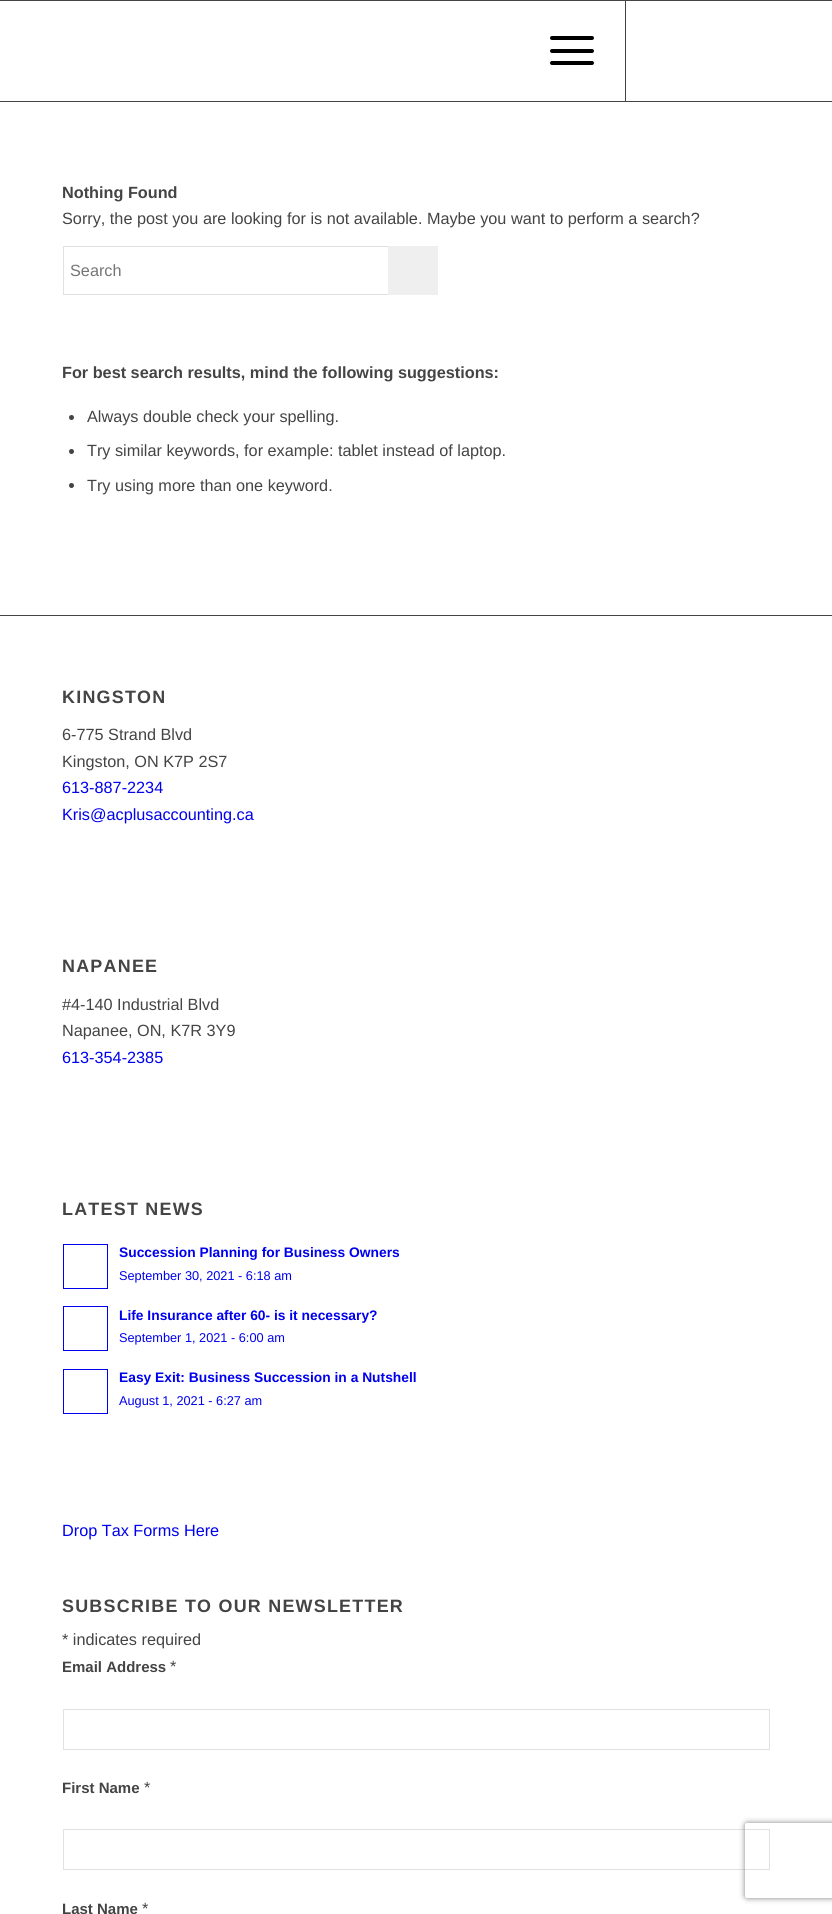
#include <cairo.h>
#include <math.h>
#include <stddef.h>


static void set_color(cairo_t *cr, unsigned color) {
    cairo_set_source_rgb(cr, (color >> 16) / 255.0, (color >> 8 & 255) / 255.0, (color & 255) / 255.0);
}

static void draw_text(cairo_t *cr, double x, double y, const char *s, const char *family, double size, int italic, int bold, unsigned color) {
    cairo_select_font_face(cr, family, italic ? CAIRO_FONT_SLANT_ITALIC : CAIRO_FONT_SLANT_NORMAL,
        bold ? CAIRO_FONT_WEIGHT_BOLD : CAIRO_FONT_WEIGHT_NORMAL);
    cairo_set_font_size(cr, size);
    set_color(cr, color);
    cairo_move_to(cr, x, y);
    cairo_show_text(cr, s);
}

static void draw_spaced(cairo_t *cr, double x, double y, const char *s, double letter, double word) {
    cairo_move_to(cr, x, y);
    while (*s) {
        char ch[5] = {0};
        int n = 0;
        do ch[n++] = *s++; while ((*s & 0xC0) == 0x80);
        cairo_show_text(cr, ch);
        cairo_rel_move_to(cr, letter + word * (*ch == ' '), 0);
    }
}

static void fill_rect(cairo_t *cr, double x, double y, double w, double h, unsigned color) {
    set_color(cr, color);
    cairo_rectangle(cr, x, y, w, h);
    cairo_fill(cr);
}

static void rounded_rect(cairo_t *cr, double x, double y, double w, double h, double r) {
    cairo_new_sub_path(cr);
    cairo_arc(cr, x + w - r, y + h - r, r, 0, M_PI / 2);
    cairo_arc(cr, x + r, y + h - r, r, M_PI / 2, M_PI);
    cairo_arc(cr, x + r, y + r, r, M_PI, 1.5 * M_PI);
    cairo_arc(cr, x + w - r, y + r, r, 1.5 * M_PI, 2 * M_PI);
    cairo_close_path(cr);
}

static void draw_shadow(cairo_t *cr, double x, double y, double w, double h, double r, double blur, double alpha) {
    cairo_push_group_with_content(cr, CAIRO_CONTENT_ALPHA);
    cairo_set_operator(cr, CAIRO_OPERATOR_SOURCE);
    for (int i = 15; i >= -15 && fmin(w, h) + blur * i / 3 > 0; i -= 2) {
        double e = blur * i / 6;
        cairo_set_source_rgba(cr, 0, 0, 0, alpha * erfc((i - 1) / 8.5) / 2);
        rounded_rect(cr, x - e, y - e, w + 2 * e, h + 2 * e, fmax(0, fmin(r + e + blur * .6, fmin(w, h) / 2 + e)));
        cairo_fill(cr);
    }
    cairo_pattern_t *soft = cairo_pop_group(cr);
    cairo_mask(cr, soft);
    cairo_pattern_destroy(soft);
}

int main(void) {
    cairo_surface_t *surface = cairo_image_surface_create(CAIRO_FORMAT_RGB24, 832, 1914);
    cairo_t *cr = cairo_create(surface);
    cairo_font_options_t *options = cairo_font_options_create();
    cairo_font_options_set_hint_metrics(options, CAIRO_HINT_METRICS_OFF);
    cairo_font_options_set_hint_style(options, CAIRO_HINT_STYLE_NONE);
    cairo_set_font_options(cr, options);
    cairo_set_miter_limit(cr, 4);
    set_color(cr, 0xFFFFFF);
    cairo_paint(cr);
    fill_rect(cr, 0, 0, 832, 1, 0x444444);
    fill_rect(cr, 0, 101, 832, 1, 0x444444);
    fill_rect(cr, 625, 1, 1, 100, 0x444444);
    set_color(cr, 0x000000);
    rounded_rect(cr, 550, 49, 44, 4, 2);
    cairo_fill(cr);
    rounded_rect(cr, 550, 36, 44, 4, 2);
    cairo_fill(cr);
    rounded_rect(cr, 550, 61, 44, 4, 2);
    cairo_fill(cr);
    draw_text(cr, 62, 198, "Nothing Found", "Liberation Sans", 16.25, 0, 1, 0x444444);
    draw_text(cr, 62, 224, "Sorry, the post you are looking for is not available. Maybe you want to perform a search?", "Liberation Sans", 16.25, 0, 0, 0x444444);
    cairo_rectangle(cr, 63.5, 246.5, 374, 48);
    set_color(cr, 0xE1E1E1);
    cairo_set_line_width(cr, 1);
    cairo_stroke(cr);
    draw_text(cr, 70, 276, "Search", "Liberation Sans", 16.25, 0, 0, 0x757575);
    fill_rect(cr, 388, 246, 50, 49, 0xEFEFEF);
    draw_text(cr, 62, 378, "For best search results, mind the following suggestions:", "Liberation Sans", 16.25, 0, 1, 0x444444);
    cairo_new_path(cr);
    cairo_arc(cr, 71.5, 417.5, 2.5, 0, 2 * M_PI);
    cairo_fill(cr);
    draw_text(cr, 87, 422, "Always double check your spelling.", "Liberation Sans", 16.25, 0, 0, 0x444444);
    cairo_new_path(cr);
    cairo_arc(cr, 71.5, 451.5, 2.5, 0, 2 * M_PI);
    cairo_fill(cr);
    draw_text(cr, 87, 456, "Try similar keywords, for example: tablet instead of laptop.", "Liberation Sans", 16.25, 0, 0, 0x444444);
    cairo_new_path(cr);
    cairo_arc(cr, 71.5, 485.5, 2.5, 0, 2 * M_PI);
    cairo_fill(cr);
    draw_text(cr, 87, 491, "Try using more than one keyword.", "Liberation Sans", 16.25, 0, 0, 0x444444);
    fill_rect(cr, 0, 615, 832, 1, 0x444444);
    cairo_select_font_face(cr, "Liberation Sans", CAIRO_FONT_SLANT_NORMAL, CAIRO_FONT_WEIGHT_BOLD);
    cairo_set_font_size(cr, 17.9);
    draw_spaced(cr, 62, 703, "KINGSTON", 1.25, 0);
    draw_text(cr, 62, 740, "6-775 Strand Blvd", "Liberation Sans", 16.25, 0, 0, 0x444444);
    draw_text(cr, 62, 767, "Kingston, ON K7P 2S7", "Liberation Sans", 16.25, 0, 0, 0x444444);
    draw_text(cr, 62, 793, "613-887-2234", "Liberation Sans", 16.25, 0, 0, 0x0000EE);
    draw_text(cr, 62, 820, "Kris@acplusaccounting.ca", "Liberation Sans", 16.25, 0, 0, 0x0000EE);
    cairo_select_font_face(cr, "Liberation Sans", CAIRO_FONT_SLANT_NORMAL, CAIRO_FONT_WEIGHT_BOLD);
    cairo_set_font_size(cr, 17.9);
    set_color(cr, 0x444444);
    draw_spaced(cr, 62, 972, "NAPANEE", 1.25, 0);
    draw_text(cr, 62, 1010, "#4-140 Industrial Blvd", "Liberation Sans", 16.25, 0, 0, 0x444444);
    draw_text(cr, 62, 1036, "Napanee, ON, K7R 3Y9", "Liberation Sans", 16.25, 0, 0, 0x444444);
    draw_text(cr, 62, 1063, "613-354-2385", "Liberation Sans", 16.25, 0, 0, 0x0000EE);
    cairo_select_font_face(cr, "Liberation Sans", CAIRO_FONT_SLANT_NORMAL, CAIRO_FONT_WEIGHT_BOLD);
    cairo_set_font_size(cr, 17.9);
    set_color(cr, 0x444444);
    draw_spaced(cr, 62, 1215, "LATEST NEWS", 1.25, 0);
    cairo_rectangle(cr, 63.5, 1244.5, 44, 44);
    set_color(cr, 0x0000EE);
    cairo_stroke(cr);
    draw_text(cr, 119, 1257, "Succession Planning for Business Owners", "Liberation Sans", 13.8, 0, 1, 0x0000EE);
    draw_text(cr, 119, 1280, "September 30, 2021 - 6:18 am", "Liberation Sans", 12.75, 0, 0, 0x0000EE);
    cairo_rectangle(cr, 63.5, 1306.5, 44, 44);
    cairo_stroke(cr);
    draw_text(cr, 119, 1320, "Life Insurance after 60- is it necessary?", "Liberation Sans", 13.8, 0, 1, 0x0000EE);
    draw_text(cr, 119, 1342, "September 1, 2021 - 6:00 am", "Liberation Sans", 12.75, 0, 0, 0x0000EE);
    cairo_rectangle(cr, 63.5, 1369.5, 44, 44);
    cairo_stroke(cr);
    draw_text(cr, 119, 1382, "Easy Exit: Business Succession in a Nutshell", "Liberation Sans", 13.8, 0, 1, 0x0000EE);
    draw_text(cr, 119, 1405, "August 1, 2021 - 6:27 am", "Liberation Sans", 12.75, 0, 0, 0x0000EE);
    draw_text(cr, 62, 1536, "Drop Tax Forms Here", "Liberation Sans", 16.25, 0, 0, 0x0000EE);
    cairo_select_font_face(cr, "Liberation Sans", CAIRO_FONT_SLANT_NORMAL, CAIRO_FONT_WEIGHT_BOLD);
    cairo_set_font_size(cr, 17.9);
    set_color(cr, 0x444444);
    draw_spaced(cr, 62, 1612, "SUBSCRIBE TO OUR NEWSLETTER", 1.25, 0);
    draw_text(cr, 62, 1645, "* indicates required", "Liberation Sans", 16.25, 0, 0, 0x444444);
    draw_text(cr, 62, 1672, "Email Address", "Liberation Sans", 15, 0, 1, 0x444444);
    draw_text(cr, 170, 1672, "*", "Liberation Sans", 16.25, 0, 0, 0x444444);
    cairo_rectangle(cr, 63.5, 1709.5, 706, 40);
    set_color(cr, 0xE1E1E1);
    cairo_stroke(cr);
    draw_text(cr, 62, 1793, "First Name", "Liberation Sans", 15, 0, 1, 0x444444);
    draw_text(cr, 144, 1793, "*", "Liberation Sans", 16.25, 0, 0, 0x444444);
    cairo_rectangle(cr, 63.5, 1829.5, 706, 40);
    set_color(cr, 0xE1E1E1);
    cairo_stroke(cr);
    draw_text(cr, 62, 1914, "Last Name", "Liberation Sans", 15, 0, 1, 0x444444);
    draw_text(cr, 142, 1914, "*", "Liberation Sans", 16.25, 0, 0, 0x444444);
    cairo_save(cr);
    cairo_set_fill_rule(cr, CAIRO_FILL_RULE_EVEN_ODD);
    cairo_new_path(cr);
    cairo_move_to(cr, 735, 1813);
    cairo_line_to(cr, 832, 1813);
    cairo_line_to(cr, 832, 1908);
    cairo_line_to(cr, 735, 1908);
    cairo_close_path(cr);
    cairo_move_to(cr, 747.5, 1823);
    cairo_line_to(cr, 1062.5, 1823);
    cairo_curve_to(cr, 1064, 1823, 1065, 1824, 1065, 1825.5);
    cairo_line_to(cr, 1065, 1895.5);
    cairo_curve_to(cr, 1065, 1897, 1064, 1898, 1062.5, 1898);
    cairo_line_to(cr, 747.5, 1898);
    cairo_curve_to(cr, 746, 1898, 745, 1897, 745, 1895.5);
    cairo_line_to(cr, 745, 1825.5);
    cairo_curve_to(cr, 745, 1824, 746, 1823, 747.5, 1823);
    cairo_close_path(cr);
    cairo_clip(cr);
    set_color(cr, 0x808080);
    draw_shadow(cr, 745, 1823, 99, 75, 2.5, 3, 1);
    cairo_restore(cr);
    cairo_surface_write_to_png(surface, "output.png");
    cairo_font_options_destroy(options);
    cairo_destroy(cr);
    cairo_surface_destroy(surface);
    return 0;
}
